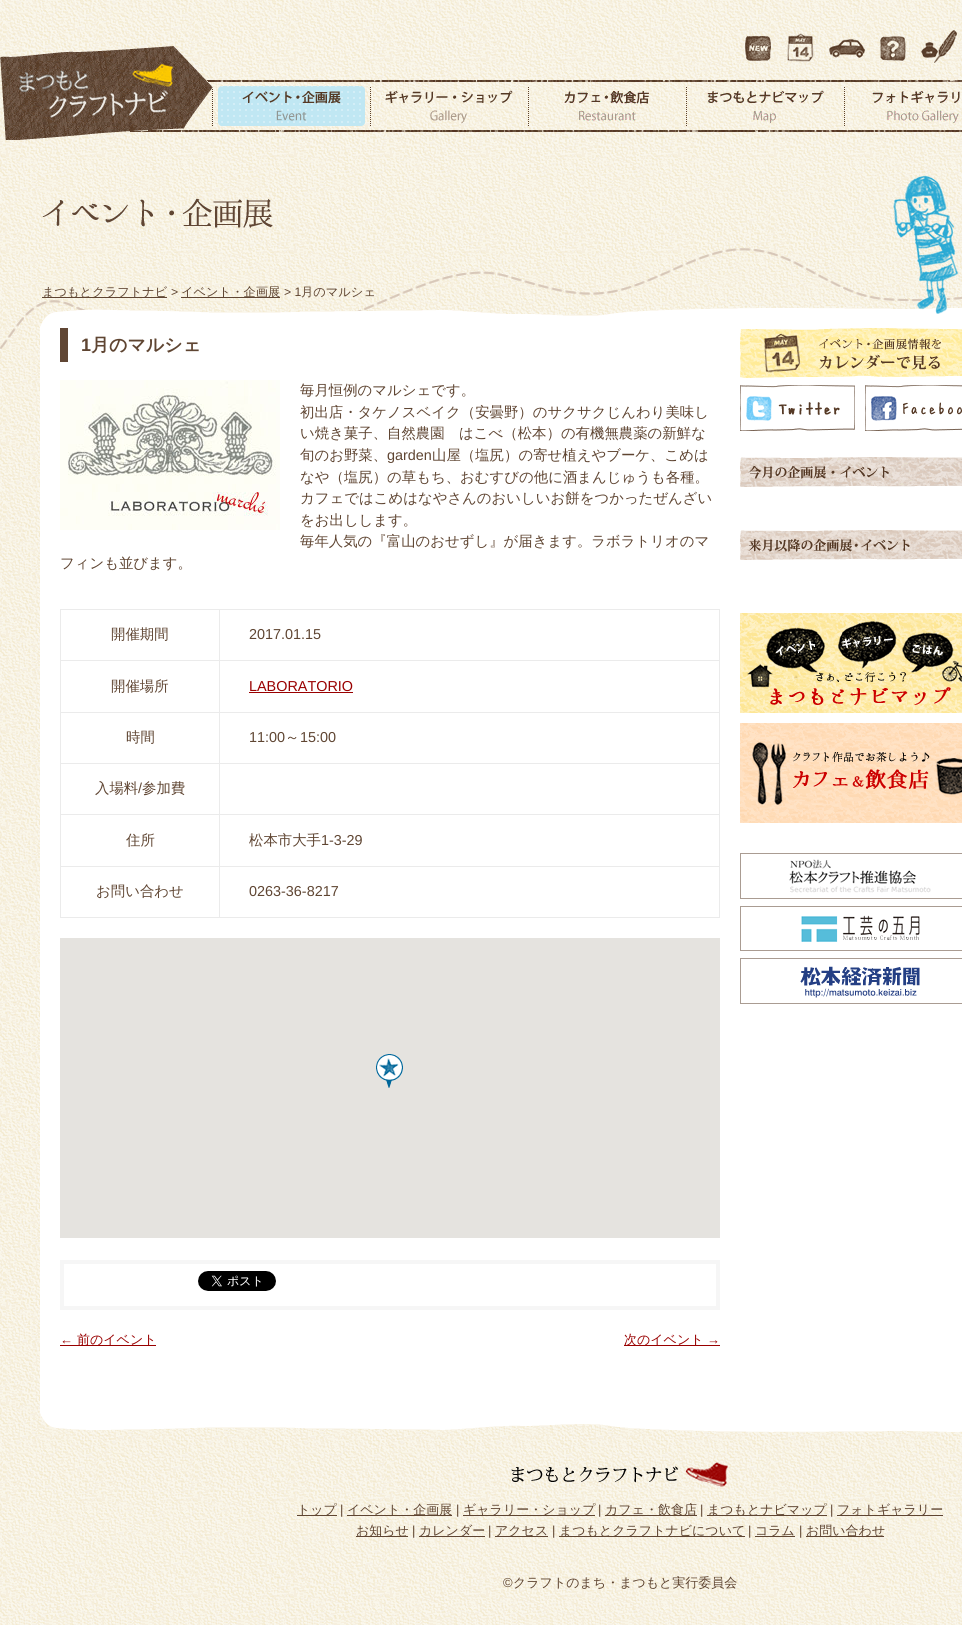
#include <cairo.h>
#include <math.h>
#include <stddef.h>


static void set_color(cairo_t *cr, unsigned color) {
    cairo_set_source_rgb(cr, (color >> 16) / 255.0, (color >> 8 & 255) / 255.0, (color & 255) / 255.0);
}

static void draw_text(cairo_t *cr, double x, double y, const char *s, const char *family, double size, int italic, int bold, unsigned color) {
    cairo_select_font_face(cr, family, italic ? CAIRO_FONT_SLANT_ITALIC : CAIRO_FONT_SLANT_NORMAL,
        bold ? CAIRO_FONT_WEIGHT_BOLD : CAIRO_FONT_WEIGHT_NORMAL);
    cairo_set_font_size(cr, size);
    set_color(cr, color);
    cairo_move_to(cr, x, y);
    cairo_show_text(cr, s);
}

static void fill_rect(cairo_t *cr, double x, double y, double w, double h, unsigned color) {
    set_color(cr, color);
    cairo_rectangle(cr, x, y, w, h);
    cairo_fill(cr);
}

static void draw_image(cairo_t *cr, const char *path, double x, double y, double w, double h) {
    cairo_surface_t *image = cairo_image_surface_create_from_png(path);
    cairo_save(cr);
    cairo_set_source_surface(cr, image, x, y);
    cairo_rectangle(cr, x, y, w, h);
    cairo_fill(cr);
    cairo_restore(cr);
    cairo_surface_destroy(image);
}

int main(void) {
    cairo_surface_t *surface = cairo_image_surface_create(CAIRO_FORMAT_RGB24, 962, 1625);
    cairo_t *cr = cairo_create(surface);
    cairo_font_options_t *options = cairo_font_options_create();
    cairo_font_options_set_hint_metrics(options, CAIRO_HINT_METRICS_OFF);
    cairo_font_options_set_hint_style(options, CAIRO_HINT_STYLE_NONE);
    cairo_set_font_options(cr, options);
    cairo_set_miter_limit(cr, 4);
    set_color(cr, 0xFFFFFF);
    cairo_paint(cr);
    draw_image(cr, "assets/img1.png", 0, 0, 962, 1625);
    draw_image(cr, "assets/img2.png", 0, 248, 962, 101);
    draw_image(cr, "assets/img9.png", 130, 80, 832, 52);
    draw_image(cr, "assets/img10.png", 212, 86, 153, 40);
    draw_image(cr, "assets/img3.png", 0, 46, 213, 94);
    draw_image(cr, "assets/img4.png", 745, 36, 26, 25);
    draw_image(cr, "assets/img5.png", 787, 33, 27, 29);
    draw_image(cr, "assets/img6.png", 829, 39, 36, 19);
    draw_image(cr, "assets/img7.png", 880, 36, 26, 25);
    draw_image(cr, "assets/img8.png", 921, 30, 36, 33);
    draw_image(cr, "assets/img11.png", 370, 87, 143, 39);
    draw_image(cr, "assets/img12.png", 528, 87, 121, 39);
    draw_image(cr, "assets/img13.png", 686, 87, 138, 39);
    draw_image(cr, "assets/img14.png", 844, 87, 116, 39);
    draw_image(cr, "assets/img15.png", 40, 175, 922, 153);
    fill_rect(cr, 42, 297, 125, 1, 0x5F4532);
    draw_text(cr, 42, 296, "まつもとクラフトナビ", "WenQuanYi Zen Hei Medium", 12.25, 0, 0, 0x5F4532);
    draw_text(cr, 171, 296, ">", "Liberation Sans", 12.25, 0, 0, 0x5F4532);
    fill_rect(cr, 181, 297, 99, 1, 0x5F4532);
    draw_text(cr, 181, 296, "イベント・企画展", "WenQuanYi Zen Hei Medium", 12.25, 0, 0, 0x5F4532);
    draw_text(cr, 284, 296, "> 1", "Liberation Sans", 12.25, 0, 0, 0x5F4532);
    draw_text(cr, 301, 296, "月のマルシェ", "WenQuanYi Zen Hei Medium", 12.25, 0, 0, 0x5F4532);
    draw_image(cr, "assets/img16.png", 40, 1402, 922, 30);
    fill_rect(cr, 40, 328, 922, 1074, 0xFFFFFF);
    fill_rect(cr, 60, 328, 8, 34, 0x604634);
    draw_text(cr, 81, 351, "1", "Liberation Sans", 18, 0, 1, 0x5F4532);
    draw_text(cr, 91, 351, "月のマルシェ", "WenQuanYi Zen Hei", 18, 0, 1, 0x5F4532);
    draw_image(cr, "assets/img17.png", 60, 380, 220, 150);
    draw_text(cr, 300, 395, "毎月恒例のマルシェです。", "WenQuanYi Zen Hei Medium", 14.4, 0, 0, 0x5F4532);
    draw_text(cr, 300, 417, "初出店・タケノスベイク（安曇野）のサクサクじんわり美味し", "WenQuanYi Zen Hei Medium", 14.4, 0, 0, 0x5F4532);
    draw_text(cr, 300, 438, "い焼き菓子、自然農園　はこべ（松本）の有機無農薬の新鮮な", "WenQuanYi Zen Hei Medium", 14.4, 0, 0, 0x5F4532);
    draw_text(cr, 300, 460, "旬のお野菜、", "WenQuanYi Zen Hei Medium", 14.4, 0, 0, 0x5F4532);
    draw_text(cr, 387, 460, "garden", "Liberation Sans", 14.4, 0, 0, 0x5F4532);
    draw_text(cr, 432, 460, "山屋（塩尻）の寄せ植えやブーケ、こめは", "WenQuanYi Zen Hei Medium", 14.4, 0, 0, 0x5F4532);
    draw_text(cr, 300, 482, "なや（塩尻）の草もち、おむすびの他に酒まんじゅうも各種。", "WenQuanYi Zen Hei Medium", 14.4, 0, 0, 0x5F4532);
    draw_text(cr, 300, 503, "カフェではこめはなやさんのおいしいお餅をつかったぜんざい", "WenQuanYi Zen Hei Medium", 14.4, 0, 0, 0x5F4532);
    draw_text(cr, 300, 525, "をお出しします。", "WenQuanYi Zen Hei Medium", 14.4, 0, 0, 0x5F4532);
    draw_text(cr, 300, 546, "毎年人気の『富山のおせずし』が届きます。ラボラトリオのマ", "WenQuanYi Zen Hei Medium", 14.4, 0, 0, 0x5F4532);
    draw_text(cr, 60, 568, "フィンも並びます。", "WenQuanYi Zen Hei Medium", 14.4, 0, 0, 0x5F4532);
    fill_rect(cr, 219, 609, 501, 1, 0xEBEBEB);
    fill_rect(cr, 219, 660, 501, 1, 0xEBEBEB);
    fill_rect(cr, 219, 712, 501, 1, 0xEBEBEB);
    fill_rect(cr, 219, 763, 501, 1, 0xEBEBEB);
    fill_rect(cr, 219, 814, 501, 1, 0xEBEBEB);
    fill_rect(cr, 219, 866, 501, 1, 0xEBEBEB);
    fill_rect(cr, 719, 866, 1, 52, 0xEBEBEB);
    fill_rect(cr, 219, 917, 501, 1, 0xEBEBEB);
    fill_rect(cr, 219, 866, 1, 52, 0xEBEBEB);
    fill_rect(cr, 60, 866, 160, 1, 0xEBEBEB);
    fill_rect(cr, 219, 814, 1, 53, 0xEBEBEB);
    fill_rect(cr, 60, 814, 160, 1, 0xEBEBEB);
    fill_rect(cr, 219, 763, 1, 52, 0xEBEBEB);
    fill_rect(cr, 60, 763, 160, 1, 0xEBEBEB);
    fill_rect(cr, 219, 712, 1, 52, 0xEBEBEB);
    fill_rect(cr, 60, 712, 160, 1, 0xEBEBEB);
    fill_rect(cr, 219, 660, 1, 53, 0xEBEBEB);
    fill_rect(cr, 60, 660, 160, 1, 0xEBEBEB);
    fill_rect(cr, 219, 609, 1, 52, 0xEBEBEB);
    fill_rect(cr, 60, 609, 160, 1, 0xEBEBEB);
    fill_rect(cr, 60, 917, 160, 1, 0xEBEBEB);
    fill_rect(cr, 60, 866, 1, 52, 0xEBEBEB);
    fill_rect(cr, 60, 814, 1, 53, 0xEBEBEB);
    fill_rect(cr, 60, 763, 1, 52, 0xEBEBEB);
    fill_rect(cr, 60, 712, 1, 52, 0xEBEBEB);
    fill_rect(cr, 60, 660, 1, 53, 0xEBEBEB);
    fill_rect(cr, 60, 609, 1, 52, 0xEBEBEB);
    draw_text(cr, 111, 639, "開催期間", "WenQuanYi Zen Hei Medium", 14.4, 0, 0, 0x5F4532);
    fill_rect(cr, 719, 814, 1, 53, 0xEBEBEB);
    fill_rect(cr, 719, 763, 1, 52, 0xEBEBEB);
    fill_rect(cr, 719, 712, 1, 52, 0xEBEBEB);
    fill_rect(cr, 719, 660, 1, 53, 0xEBEBEB);
    fill_rect(cr, 719, 609, 1, 52, 0xEBEBEB);
    draw_text(cr, 249, 639, "2017.01.15", "Liberation Sans", 14.4, 0, 0, 0x5F4532);
    draw_text(cr, 111, 691, "開催場所", "WenQuanYi Zen Hei Medium", 14.4, 0, 0, 0x5F4532);
    draw_text(cr, 249, 691, "LABORATORIO", "Liberation Sans", 14.4, 0, 0, 0x990000);
    fill_rect(cr, 249, 692, 104, 1, 0x990000);
    draw_text(cr, 126, 742, "時間", "WenQuanYi Zen Hei Medium", 14.4, 0, 0, 0x5F4532);
    draw_text(cr, 249, 742, "11:00", "Liberation Sans", 14.4, 0, 0, 0x5F4532);
    draw_text(cr, 285, 742, "～", "WenQuanYi Zen Hei Medium", 14.4, 0, 0, 0x5F4532);
    draw_text(cr, 300, 742, "15:00", "Liberation Sans", 14.4, 0, 0, 0x5F4532);
    draw_text(cr, 95, 793, "入場料", "WenQuanYi Zen Hei Medium", 14.4, 0, 0, 0x5F4532);
    draw_text(cr, 138, 793, "/", "Liberation Sans", 14.4, 0, 0, 0x5F4532);
    draw_text(cr, 142, 793, "参加費", "WenQuanYi Zen Hei Medium", 14.4, 0, 0, 0x5F4532);
    draw_text(cr, 126, 845, "住所", "WenQuanYi Zen Hei Medium", 14.4, 0, 0, 0x5F4532);
    draw_text(cr, 249, 845, "松本市大手", "WenQuanYi Zen Hei Medium", 14.4, 0, 0, 0x5F4532);
    draw_text(cr, 321, 845, "1-3-29", "Liberation Sans", 14.4, 0, 0, 0x5F4532);
    draw_text(cr, 96, 896, "お問い合わせ", "WenQuanYi Zen Hei Medium", 14.4, 0, 0, 0x5F4532);
    draw_text(cr, 249, 896, "0263-36-8217", "Liberation Sans", 14.4, 0, 0, 0x5F4532);
    fill_rect(cr, 60, 938, 660, 300, 0xE5E3DF);
    draw_image(cr, "assets/img18.png", 376, 1054, 27, 34);
    cairo_rectangle(cr, 62, 1262, 656, 46);
    set_color(cr, 0xF6F6F6);
    cairo_set_line_width(cr, 4);
    cairo_stroke(cr);
    draw_image(cr, "assets/img19.png", 198, 1271, 78, 20);
    draw_text(cr, 60, 1344, "←", "Liberation Sans", 13, 0, 0, 0x990000);
    fill_rect(cr, 60, 1345, 96, 1, 0x990000);
    draw_text(cr, 77, 1344, "前のイベント", "WenQuanYi Zen Hei Medium", 13, 0, 0, 0x990000);
    fill_rect(cr, 624, 1345, 96, 1, 0x990000);
    draw_text(cr, 624, 1344, "次のイベント", "WenQuanYi Zen Hei Medium", 13, 0, 0, 0x990000);
    draw_text(cr, 707, 1344, "→", "Liberation Sans", 13, 0, 0, 0x990000);
    draw_image(cr, "assets/img20.png", 740, 328, 222, 50);
    draw_image(cr, "assets/img21.png", 740, 385, 115, 46);
    draw_image(cr, "assets/img22.png", 865, 385, 97, 46);
    draw_image(cr, "assets/img23.png", 740, 457, 222, 30);
    draw_image(cr, "assets/img24.png", 740, 530, 222, 30);
    draw_image(cr, "assets/img25.png", 740, 613, 222, 100);
    draw_image(cr, "assets/img26.png", 740, 723, 222, 100);
    draw_image(cr, "assets/img27.png", 740, 853, 222, 46);
    draw_image(cr, "assets/img28.png", 740, 906, 222, 45);
    draw_image(cr, "assets/img29.png", 740, 958, 222, 46);
    draw_image(cr, "assets/img30.png", 511, 1462, 217, 25);
    fill_rect(cr, 297, 1515, 40, 1, 0x5F4532);
    draw_text(cr, 297, 1514, "トップ", "WenQuanYi Zen Hei Medium", 13, 0, 0, 0x5F4532);
    draw_text(cr, 340, 1514, "|", "Liberation Sans", 13, 0, 0, 0x5F4532);
    fill_rect(cr, 347, 1515, 105, 1, 0x5F4532);
    draw_text(cr, 347, 1514, "イベント・企画展", "WenQuanYi Zen Hei Medium", 13, 0, 0, 0x5F4532);
    draw_text(cr, 456, 1514, "|", "Liberation Sans", 13, 0, 0, 0x5F4532);
    fill_rect(cr, 463, 1515, 132, 1, 0x5F4532);
    draw_text(cr, 463, 1514, "ギャラリー・ショップ", "WenQuanYi Zen Hei Medium", 13, 0, 0, 0x5F4532);
    draw_text(cr, 598, 1514, "|", "Liberation Sans", 13, 0, 0, 0x5F4532);
    fill_rect(cr, 605, 1515, 92, 1, 0x5F4532);
    draw_text(cr, 605, 1514, "カフェ・飲食店", "WenQuanYi Zen Hei Medium", 13, 0, 0, 0x5F4532);
    draw_text(cr, 700, 1514, "|", "Liberation Sans", 13, 0, 0, 0x5F4532);
    fill_rect(cr, 707, 1515, 120, 1, 0x5F4532);
    draw_text(cr, 707, 1514, "まつもとナビマップ", "WenQuanYi Zen Hei Medium", 13, 0, 0, 0x5F4532);
    draw_text(cr, 830, 1514, "|", "Liberation Sans", 13, 0, 0, 0x5F4532);
    fill_rect(cr, 837, 1515, 106, 1, 0x5F4532);
    draw_text(cr, 837, 1514, "フォトギャラリー", "WenQuanYi Zen Hei Medium", 13, 0, 0, 0x5F4532);
    fill_rect(cr, 356, 1536, 52, 1, 0x5F4532);
    draw_text(cr, 356, 1535, "お知らせ", "WenQuanYi Zen Hei Medium", 13, 0, 0, 0x5F4532);
    draw_text(cr, 412, 1535, "|", "Liberation Sans", 13, 0, 0, 0x5F4532);
    fill_rect(cr, 419, 1536, 66, 1, 0x5F4532);
    draw_text(cr, 419, 1535, "カレンダー", "WenQuanYi Zen Hei Medium", 13, 0, 0, 0x5F4532);
    draw_text(cr, 488, 1535, "|", "Liberation Sans", 13, 0, 0, 0x5F4532);
    fill_rect(cr, 495, 1536, 53, 1, 0x5F4532);
    draw_text(cr, 495, 1535, "アクセス", "WenQuanYi Zen Hei Medium", 13, 0, 0, 0x5F4532);
    draw_text(cr, 552, 1535, "|", "Liberation Sans", 13, 0, 0, 0x5F4532);
    fill_rect(cr, 559, 1536, 186, 1, 0x5F4532);
    draw_text(cr, 559, 1535, "まつもとクラフトナビについて", "WenQuanYi Zen Hei Medium", 13, 0, 0, 0x5F4532);
    draw_text(cr, 748, 1535, "|", "Liberation Sans", 13, 0, 0, 0x5F4532);
    fill_rect(cr, 755, 1536, 40, 1, 0x5F4532);
    draw_text(cr, 755, 1535, "コラム", "WenQuanYi Zen Hei Medium", 13, 0, 0, 0x5F4532);
    draw_text(cr, 799, 1535, "|", "Liberation Sans", 13, 0, 0, 0x5F4532);
    fill_rect(cr, 806, 1536, 78, 1, 0x5F4532);
    draw_text(cr, 806, 1535, "お問い合わせ", "WenQuanYi Zen Hei Medium", 13, 0, 0, 0x5F4532);
    draw_text(cr, 503, 1587, "©", "Liberation Sans", 13, 0, 0, 0x5F4532);
    draw_text(cr, 513, 1587, "クラフトのまち・まつもと実行委員会", "WenQuanYi Zen Hei Medium", 13, 0, 0, 0x5F4532);
    cairo_surface_write_to_png(surface, "output.png");
    cairo_font_options_destroy(options);
    cairo_destroy(cr);
    cairo_surface_destroy(surface);
    return 0;
}
